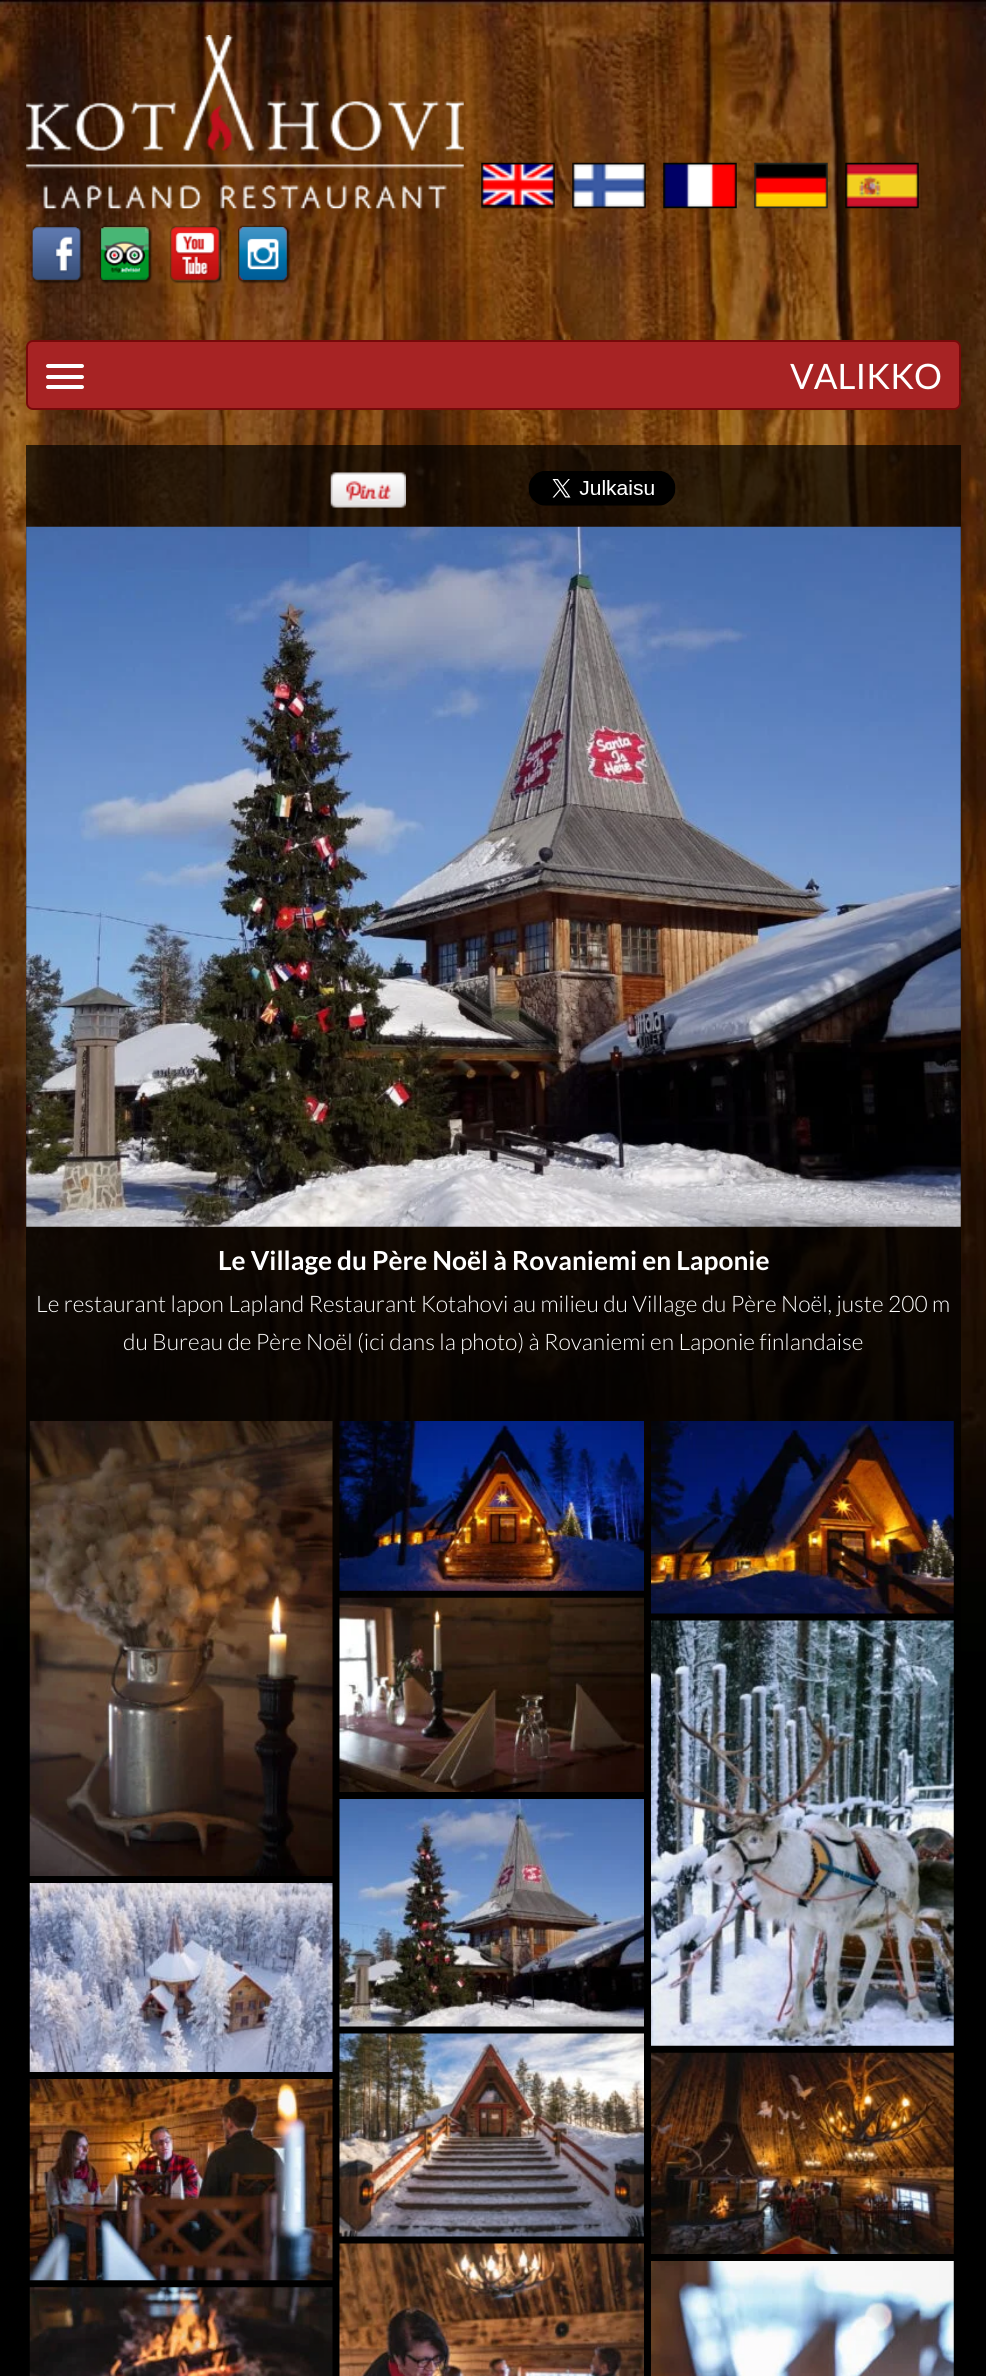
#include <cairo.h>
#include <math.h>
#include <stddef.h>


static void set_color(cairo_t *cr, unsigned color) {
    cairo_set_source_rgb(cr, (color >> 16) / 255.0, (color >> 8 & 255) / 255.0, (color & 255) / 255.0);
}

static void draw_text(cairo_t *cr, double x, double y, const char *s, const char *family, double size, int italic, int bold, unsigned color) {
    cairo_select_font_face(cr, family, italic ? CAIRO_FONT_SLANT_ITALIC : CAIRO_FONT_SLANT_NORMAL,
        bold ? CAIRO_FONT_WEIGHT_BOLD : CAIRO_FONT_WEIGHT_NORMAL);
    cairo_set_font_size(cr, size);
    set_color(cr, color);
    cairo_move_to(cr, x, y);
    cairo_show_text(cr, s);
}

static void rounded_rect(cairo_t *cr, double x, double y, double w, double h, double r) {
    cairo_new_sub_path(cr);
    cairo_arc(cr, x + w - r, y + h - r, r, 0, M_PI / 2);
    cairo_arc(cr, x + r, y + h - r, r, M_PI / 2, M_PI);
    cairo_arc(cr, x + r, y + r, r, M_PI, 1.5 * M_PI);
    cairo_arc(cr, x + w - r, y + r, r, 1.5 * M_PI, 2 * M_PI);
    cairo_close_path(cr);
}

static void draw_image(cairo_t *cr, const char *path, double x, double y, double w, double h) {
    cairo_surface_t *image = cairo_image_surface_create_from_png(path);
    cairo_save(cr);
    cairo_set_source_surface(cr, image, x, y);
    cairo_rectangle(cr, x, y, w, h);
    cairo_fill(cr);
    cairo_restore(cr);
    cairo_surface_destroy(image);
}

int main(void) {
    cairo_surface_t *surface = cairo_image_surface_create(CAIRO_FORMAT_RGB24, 986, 2376);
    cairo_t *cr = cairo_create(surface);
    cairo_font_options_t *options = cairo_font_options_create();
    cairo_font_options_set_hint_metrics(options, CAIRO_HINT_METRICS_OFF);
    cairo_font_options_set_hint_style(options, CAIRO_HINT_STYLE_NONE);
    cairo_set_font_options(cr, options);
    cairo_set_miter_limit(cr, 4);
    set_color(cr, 0x000000);
    cairo_paint(cr);
    draw_image(cr, "assets/img1.png", 0, 0, 986, 1652);
    draw_image(cr, "assets/img2.png", 26, 35, 438, 174);
    draw_image(cr, "assets/img3.png", 481, 162, 74, 47);
    draw_image(cr, "assets/img4.png", 572, 162, 74, 47);
    draw_image(cr, "assets/img5.png", 663, 162, 74, 47);
    draw_image(cr, "assets/img6.png", 754, 162, 74, 47);
    draw_image(cr, "assets/img7.png", 845, 162, 74, 47);
    draw_image(cr, "assets/img8.png", 31, 225, 53, 59);
    draw_image(cr, "assets/img9.png", 99, 225, 54, 59);
    draw_image(cr, "assets/img10.png", 169, 225, 54, 59);
    draw_image(cr, "assets/img11.png", 238, 225, 53, 59);
    set_color(cr, 0xA72324);
    rounded_rect(cr, 27, 341, 933, 68, 6);
    cairo_fill_preserve(cr);
    set_color(cr, 0x77090A);
    cairo_stroke(cr);
    set_color(cr, 0xFFFFFF);
    rounded_rect(cr, 46, 364, 38, 4, 2);
    cairo_fill(cr);
    rounded_rect(cr, 46, 375, 38, 4, 2);
    cairo_fill(cr);
    rounded_rect(cr, 46, 385, 38, 4, 2);
    cairo_fill(cr);
    draw_text(cr, 790, 389, "VALIKKO", "Lato", 35, 0, 0, 0xFFFFFF);
    cairo_set_source_rgba(cr, 0, 0, 0, 0.7);
    cairo_rectangle(cr, 26, 445, 935, 1207);
    cairo_fill(cr);
    draw_image(cr, "assets/img12.png", 330, 472, 76, 36);
    draw_image(cr, "assets/img13.png", 528, 471, 148, 35);
    draw_image(cr, "assets/img14.png", 26, 526, 935, 701);
    draw_text(cr, 218, 1270, "Le Village du Père Noël à Rovaniemi en Laponie", "Lato", 26.25, 0, 1, 0xFFFFFF);
    draw_text(cr, 36, 1312, "Le restaurant lapon Lapland Restaurant Kotahovi au milieu du Village du Père Noël, juste 200 m", "Lato Light", 22.75, 0, 0, 0xFFFFFF);
    draw_text(cr, 123, 1350, "du Bureau de Père Noël (ici dans la photo) à Rovaniemi en Laponie finlandaise", "Lato Light", 22.75, 0, 0, 0xFFFFFF);
    draw_image(cr, "assets/img15.png", 29, 1421, 304, 455);
    draw_image(cr, "assets/img16.png", 339, 1421, 305, 170);
    draw_image(cr, "assets/img17.png", 651, 1421, 303, 193);
    draw_image(cr, "assets/img18.png", 339, 1597, 305, 195);
    draw_image(cr, "assets/img19.png", 651, 1620, 303, 426);
    draw_image(cr, "assets/img20.png", 29, 1883, 304, 189);
    draw_image(cr, "assets/img21.png", 339, 1799, 305, 228);
    draw_image(cr, "assets/img22.png", 29, 2079, 304, 202);
    draw_image(cr, "assets/img23.png", 339, 2033, 305, 204);
    draw_image(cr, "assets/img24.png", 651, 2052, 303, 202);
    draw_image(cr, "assets/img25.png", 29, 2287, 304, 89);
    draw_image(cr, "assets/img26.png", 339, 2243, 305, 133);
    draw_image(cr, "assets/img27.png", 651, 2261, 303, 115);
    cairo_surface_write_to_png(surface, "output.png");
    cairo_font_options_destroy(options);
    cairo_destroy(cr);
    cairo_surface_destroy(surface);
    return 0;
}
